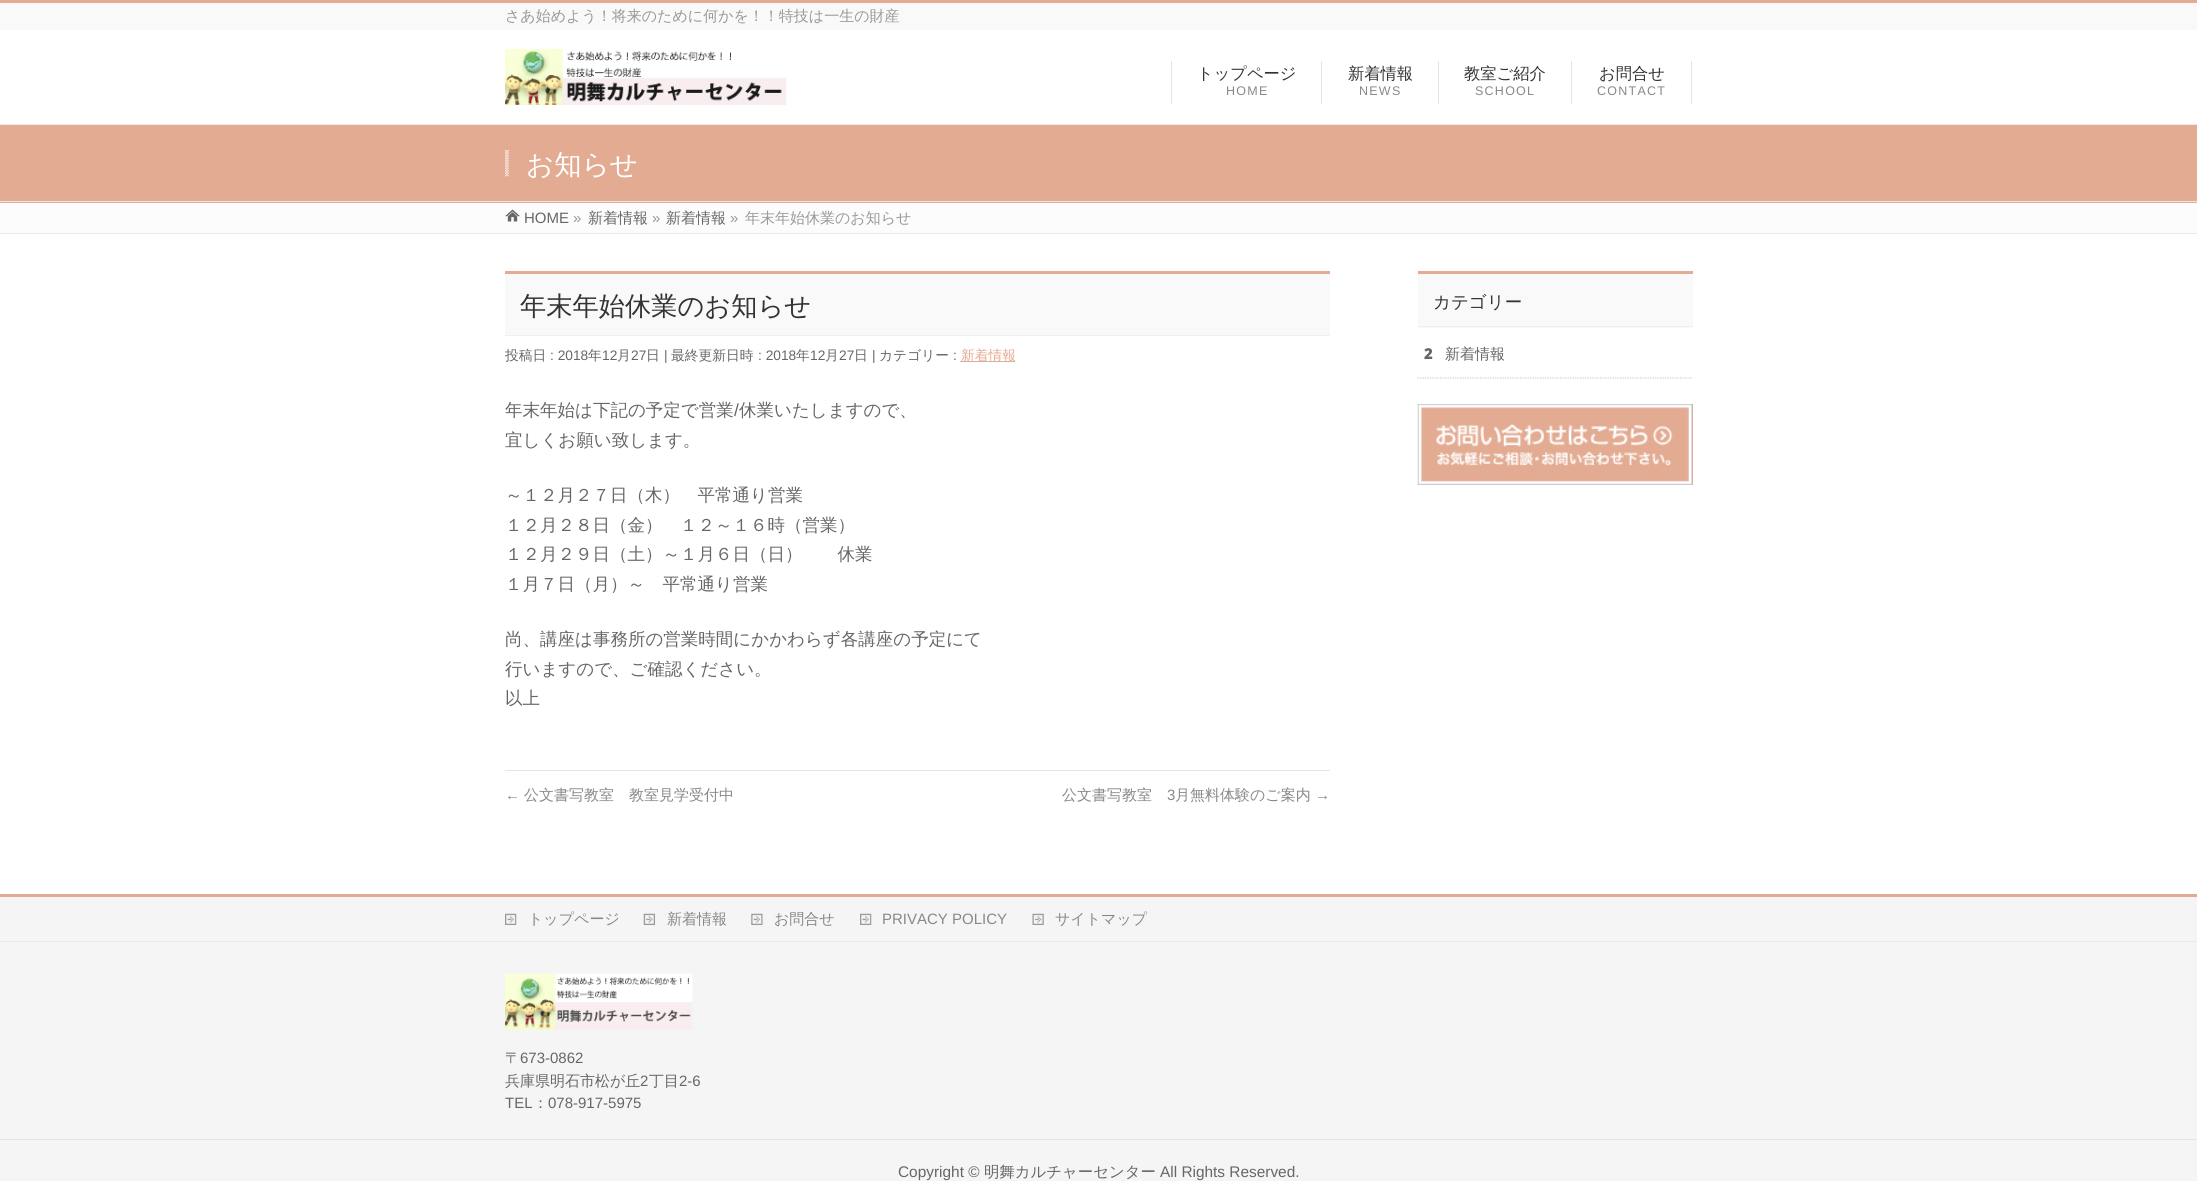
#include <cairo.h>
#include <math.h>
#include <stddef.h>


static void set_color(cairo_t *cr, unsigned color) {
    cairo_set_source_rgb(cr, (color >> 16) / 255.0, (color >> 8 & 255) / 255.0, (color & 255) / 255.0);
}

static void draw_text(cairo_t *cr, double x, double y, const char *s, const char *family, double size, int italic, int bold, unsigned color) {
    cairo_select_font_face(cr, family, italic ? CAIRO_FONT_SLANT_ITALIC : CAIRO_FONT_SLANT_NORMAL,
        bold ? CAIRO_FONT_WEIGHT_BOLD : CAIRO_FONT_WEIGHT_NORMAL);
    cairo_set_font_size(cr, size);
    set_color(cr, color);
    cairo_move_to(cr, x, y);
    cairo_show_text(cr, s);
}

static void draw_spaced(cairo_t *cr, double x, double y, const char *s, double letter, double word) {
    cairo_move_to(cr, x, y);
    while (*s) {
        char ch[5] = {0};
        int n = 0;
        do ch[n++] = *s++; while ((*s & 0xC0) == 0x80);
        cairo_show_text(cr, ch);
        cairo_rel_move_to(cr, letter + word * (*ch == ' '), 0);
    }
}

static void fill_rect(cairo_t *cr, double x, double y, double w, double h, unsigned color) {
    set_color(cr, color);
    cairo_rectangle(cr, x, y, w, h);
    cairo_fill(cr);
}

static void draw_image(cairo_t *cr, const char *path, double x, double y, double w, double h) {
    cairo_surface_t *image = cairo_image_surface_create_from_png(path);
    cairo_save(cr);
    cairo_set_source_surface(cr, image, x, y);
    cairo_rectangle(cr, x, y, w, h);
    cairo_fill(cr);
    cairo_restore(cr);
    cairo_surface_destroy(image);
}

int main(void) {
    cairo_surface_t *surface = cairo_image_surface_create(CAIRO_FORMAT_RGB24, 2197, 1181);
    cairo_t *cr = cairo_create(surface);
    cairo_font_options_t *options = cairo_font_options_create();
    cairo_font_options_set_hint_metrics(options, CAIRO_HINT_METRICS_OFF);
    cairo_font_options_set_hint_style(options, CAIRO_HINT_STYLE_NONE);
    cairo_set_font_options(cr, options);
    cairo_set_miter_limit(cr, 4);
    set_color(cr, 0xFFFFFF);
    cairo_paint(cr);
    fill_rect(cr, 0, 3, 2197, 27, 0xF9F9F9);
    fill_rect(cr, 0, 0, 2197, 3, 0xE2AB92);
    draw_text(cr, 505, 21, "さあ始めよう！将来のために何かを！！特技は一生の財産", "WenQuanYi Zen Hei Medium", 15, 0, 0, 0x999999);
    draw_image(cr, "assets/img1.png", 505, 48, 282, 57);
    fill_rect(cr, 1321, 61, 1, 43, 0xE5E5E5);
    fill_rect(cr, 1171, 61, 1, 43, 0xE5E5E5);
    draw_text(cr, 1197, 79, "トップページ", "WenQuanYi Zen Hei Medium", 16.25, 0, 0, 0x333333);
    cairo_select_font_face(cr, "Liberation Sans", CAIRO_FONT_SLANT_NORMAL, CAIRO_FONT_WEIGHT_NORMAL);
    cairo_set_font_size(cr, 12.5);
    set_color(cr, 0x888888);
    draw_spaced(cr, 1226, 95, "HOME", 1.25, 0);
    fill_rect(cr, 1438, 61, 1, 43, 0xE5E5E5);
    draw_text(cr, 1348, 79, "新着情報", "WenQuanYi Zen Hei Medium", 16.25, 0, 0, 0x333333);
    cairo_select_font_face(cr, "Liberation Sans", CAIRO_FONT_SLANT_NORMAL, CAIRO_FONT_WEIGHT_NORMAL);
    cairo_set_font_size(cr, 12.5);
    set_color(cr, 0x888888);
    draw_spaced(cr, 1359, 95, "NEWS", 1.25, 0);
    fill_rect(cr, 1571, 61, 1, 43, 0xE5E5E5);
    draw_text(cr, 1464, 79, "教室ご紹介", "WenQuanYi Zen Hei Medium", 16.25, 0, 0, 0x333333);
    cairo_select_font_face(cr, "Liberation Sans", CAIRO_FONT_SLANT_NORMAL, CAIRO_FONT_WEIGHT_NORMAL);
    cairo_set_font_size(cr, 12.5);
    set_color(cr, 0x888888);
    draw_spaced(cr, 1475, 95, "SCHOOL", 1.25, 0);
    fill_rect(cr, 1691, 61, 1, 43, 0xE5E5E5);
    draw_text(cr, 1599, 79, "お問合せ", "WenQuanYi Zen Hei Medium", 16.25, 0, 0, 0x333333);
    cairo_select_font_face(cr, "Liberation Sans", CAIRO_FONT_SLANT_NORMAL, CAIRO_FONT_WEIGHT_NORMAL);
    cairo_set_font_size(cr, 12.5);
    set_color(cr, 0x888888);
    draw_spaced(cr, 1597, 95, "CONTACT", 1.25, 0);
    fill_rect(cr, 0, 125, 2197, 78, 0xE2AB92);
    fill_rect(cr, 0, 124, 2197, 1, 0xE9E9E9);
    fill_rect(cr, 0, 201, 2197, 1, 0xE9E9E9);
    draw_image(cr, "assets/img2.png", 505, 150, 4, 27);
    draw_text(cr, 526, 174, "お知らせ", "WenQuanYi Zen Hei Medium", 27.5, 0, 0, 0xFFFFFF);
    fill_rect(cr, 0, 203, 2197, 30, 0xFCFCFC);
    draw_image(cr, "assets/img3.png", 505, 209, 15, 13);
    draw_text(cr, 524, 223, "HOME", "Liberation Sans", 15, 0, 0, 0x666666);
    draw_text(cr, 573, 223, "»", "Liberation Sans", 15, 0, 0, 0x999999);
    draw_text(cr, 588, 223, "新着情報", "WenQuanYi Zen Hei Medium", 15, 0, 0, 0x666666);
    draw_text(cr, 652, 223, "»", "Liberation Sans", 15, 0, 0, 0x999999);
    draw_text(cr, 666, 223, "新着情報", "WenQuanYi Zen Hei Medium", 15, 0, 0, 0x666666);
    draw_text(cr, 730, 223, "»", "Liberation Sans", 15, 0, 0, 0x999999);
    draw_text(cr, 745, 223, "年末年始休業のお知らせ", "WenQuanYi Zen Hei Medium", 15, 0, 0, 0x999999);
    fill_rect(cr, 0, 233, 2197, 1, 0xE9E9E9);
    fill_rect(cr, 505, 274, 825, 61, 0xF9F9F9);
    fill_rect(cr, 505, 271, 825, 3, 0xE2AB92);
    fill_rect(cr, 505, 335, 825, 1, 0xEFEFEF);
    draw_text(cr, 520, 315, "年末年始休業のお知らせ", "WenQuanYi Zen Hei Medium", 26.25, 0, 0, 0x333333);
    draw_text(cr, 505, 360, "投稿日", "WenQuanYi Zen Hei Medium", 13.75, 0, 0, 0x666666);
    draw_text(cr, 550, 360, ": 2018", "Liberation Sans", 13.75, 0, 0, 0x666666);
    draw_text(cr, 588, 360, "年", "WenQuanYi Zen Hei Medium", 13.75, 0, 0, 0x666666);
    draw_text(cr, 602, 360, "12", "Liberation Sans", 13.75, 0, 0, 0x666666);
    draw_text(cr, 617, 360, "月", "WenQuanYi Zen Hei Medium", 13.75, 0, 0, 0x666666);
    draw_text(cr, 631, 360, "27", "Liberation Sans", 13.75, 0, 0, 0x666666);
    draw_text(cr, 646, 360, "日", "WenQuanYi Zen Hei Medium", 13.75, 0, 0, 0x666666);
    draw_text(cr, 664, 360, "|", "Liberation Sans", 13.75, 0, 0, 0x666666);
    draw_text(cr, 671, 360, "最終更新日時", "WenQuanYi Zen Hei Medium", 13.75, 0, 0, 0x666666);
    draw_text(cr, 758, 360, ": 2018", "Liberation Sans", 13.75, 0, 0, 0x666666);
    draw_text(cr, 796, 360, "年", "WenQuanYi Zen Hei Medium", 13.75, 0, 0, 0x666666);
    draw_text(cr, 810, 360, "12", "Liberation Sans", 13.75, 0, 0, 0x666666);
    draw_text(cr, 825, 360, "月", "WenQuanYi Zen Hei Medium", 13.75, 0, 0, 0x666666);
    draw_text(cr, 839, 360, "27", "Liberation Sans", 13.75, 0, 0, 0x666666);
    draw_text(cr, 854, 360, "日", "WenQuanYi Zen Hei Medium", 13.75, 0, 0, 0x666666);
    draw_text(cr, 872, 360, "|", "Liberation Sans", 13.75, 0, 0, 0x666666);
    draw_text(cr, 879, 360, "カテゴリー", "WenQuanYi Zen Hei Medium", 13.75, 0, 0, 0x666666);
    draw_text(cr, 953, 360, ":", "Liberation Sans", 13.75, 0, 0, 0x666666);
    fill_rect(cr, 960, 361, 55, 1, 0xE2AB92);
    draw_text(cr, 961, 360, "新着情報", "WenQuanYi Zen Hei Medium", 13.75, 0, 0, 0xE2AB92);
    draw_text(cr, 505, 416, "年末年始は下記の予定で営業", "WenQuanYi Zen Hei Medium", 17.5, 0, 0, 0x666666);
    draw_text(cr, 734, 416, "/", "Liberation Sans", 17.5, 0, 0, 0x666666);
    draw_text(cr, 739, 416, "休業いたしますので、", "WenQuanYi Zen Hei Medium", 17.5, 0, 0, 0x666666);
    draw_text(cr, 505, 446, "宜しくお願い致します。", "WenQuanYi Zen Hei Medium", 17.5, 0, 0, 0x666666);
    draw_text(cr, 505, 501, "～１２月２７日（木）　平常通り営業", "WenQuanYi Zen Hei Medium", 17.5, 0, 0, 0x666666);
    draw_text(cr, 505, 531, "１２月２８日（金）　１２～１６時（営業）", "WenQuanYi Zen Hei Medium", 17.5, 0, 0, 0x666666);
    draw_text(cr, 505, 560, "１２月２９日（土）～１月６日（日）　　休業", "WenQuanYi Zen Hei Medium", 17.5, 0, 0, 0x666666);
    draw_text(cr, 505, 590, "１月７日（月）～　平常通り営業", "WenQuanYi Zen Hei Medium", 17.5, 0, 0, 0x666666);
    draw_text(cr, 505, 645, "尚、講座は事務所の営業時間にかかわらず各講座の予定にて", "WenQuanYi Zen Hei Medium", 17.5, 0, 0, 0x666666);
    draw_text(cr, 505, 675, "行いますので、ご確認ください。", "WenQuanYi Zen Hei Medium", 17.5, 0, 0, 0x666666);
    draw_text(cr, 505, 704, "以上", "WenQuanYi Zen Hei Medium", 17.5, 0, 0, 0x666666);
    fill_rect(cr, 505, 770, 825, 1, 0xE5E5E5);
    draw_text(cr, 505, 800, "←", "Liberation Sans", 15, 0, 0, 0x888888);
    draw_text(cr, 524, 800, "公文書写教室　教室見学受付中", "WenQuanYi Zen Hei Medium", 15, 0, 0, 0x888888);
    draw_text(cr, 1062, 800, "公文書写教室", "WenQuanYi Zen Hei Medium", 15, 0, 0, 0x888888);
    draw_text(cr, 1167, 800, "3", "Liberation Sans", 15, 0, 0, 0x888888);
    draw_text(cr, 1175, 800, "月無料体験のご案内", "WenQuanYi Zen Hei Medium", 15, 0, 0, 0x888888);
    draw_text(cr, 1315, 800, "→", "Liberation Sans", 15, 0, 0, 0x888888);
    fill_rect(cr, 1418, 274, 275, 54, 0xF9F9F9);
    fill_rect(cr, 1418, 271, 275, 3, 0xE2AB92);
    fill_rect(cr, 1418, 326, 275, 1, 0xEFEFEF);
    draw_text(cr, 1433, 308, "カテゴリー", "WenQuanYi Zen Hei Medium", 17.5, 0, 0, 0x333333);
    cairo_new_path(cr);
    cairo_move_to(cr, 1417.5, 378);
    cairo_line_to(cr, 1692.5, 378);
    set_color(cr, 0xCCCCCC);
    cairo_set_line_width(cr, 1.2);
    cairo_set_dash(cr, (double[]){1.25, 1.25}, 2, 0);
    cairo_stroke(cr);
    draw_text(cr, 1424, 359, "2", "Noto Sans Black", 15, 0, 0, 0x666666);
    draw_text(cr, 1445, 359, "新着情報", "WenQuanYi Zen Hei Medium", 15, 0, 0, 0x666666);
    fill_rect(cr, 1421, 404, 272, 81, 0xE2AB92);
    draw_image(cr, "assets/img4.png", 1417, 404, 276, 81);
    fill_rect(cr, 0, 894, 2197, 3, 0xE2AB92);
    fill_rect(cr, 0, 897, 2197, 242, 0xF5F5F5);
    fill_rect(cr, 0, 941, 2197, 1, 0xE9E9E9);
    draw_image(cr, "assets/img5.png", 505, 913, 12, 12);
    draw_text(cr, 528, 924, "トップページ", "WenQuanYi Zen Hei Medium", 15, 0, 0, 0x888888);
    draw_image(cr, "assets/img6.png", 643, 913, 12, 12);
    draw_text(cr, 667, 924, "新着情報", "WenQuanYi Zen Hei Medium", 15, 0, 0, 0x888888);
    draw_image(cr, "assets/img7.png", 751, 913, 12, 12);
    draw_text(cr, 774, 924, "お問合せ", "WenQuanYi Zen Hei Medium", 15, 0, 0, 0x888888);
    draw_image(cr, "assets/img8.png", 860, 913, 12, 12);
    draw_text(cr, 882, 924, "PRIVACY POLICY", "Liberation Sans", 15, 0, 0, 0x888888);
    draw_image(cr, "assets/img9.png", 1032, 913, 12, 12);
    draw_text(cr, 1055, 924, "サイトマップ", "WenQuanYi Zen Hei Medium", 15, 0, 0, 0x888888);
    draw_image(cr, "assets/img10.png", 505, 973, 188, 57);
    draw_text(cr, 505, 1063, "〒", "WenQuanYi Zen Hei Medium", 15, 0, 0, 0x666666);
    draw_text(cr, 520, 1063, "673-0862", "Liberation Sans", 15, 0, 0, 0x666666);
    draw_text(cr, 505, 1086, "兵庫県明石市松が丘", "WenQuanYi Zen Hei Medium", 15, 0, 0, 0x666666);
    draw_text(cr, 640, 1086, "2", "Liberation Sans", 15, 0, 0, 0x666666);
    draw_text(cr, 649, 1086, "丁目", "WenQuanYi Zen Hei Medium", 15, 0, 0, 0x666666);
    draw_text(cr, 679, 1086, "2-6", "Liberation Sans", 15, 0, 0, 0x666666);
    draw_text(cr, 505, 1108, "TEL", "Liberation Sans", 15, 0, 0, 0x666666);
    draw_text(cr, 533, 1108, "：", "WenQuanYi Zen Hei Medium", 15, 0, 0, 0x666666);
    draw_text(cr, 548, 1108, "078-917-5975", "Liberation Sans", 15, 0, 0, 0x666666);
    fill_rect(cr, 0, 1140, 2197, 41, 0xF5F5F5);
    fill_rect(cr, 0, 1139, 2197, 1, 0xE5E5E5);
    draw_text(cr, 898, 1177, "Copyright ©", "Liberation Sans", 15.4, 0, 0, 0x666666);
    draw_text(cr, 984, 1177, "明舞カルチャーセンター", "WenQuanYi Zen Hei Medium", 15.4, 0, 0, 0x666666);
    draw_text(cr, 1160, 1177, "All Rights Reserved.", "Liberation Sans", 15.4, 0, 0, 0x666666);
    cairo_surface_write_to_png(surface, "output.png");
    cairo_font_options_destroy(options);
    cairo_destroy(cr);
    cairo_surface_destroy(surface);
    return 0;
}
